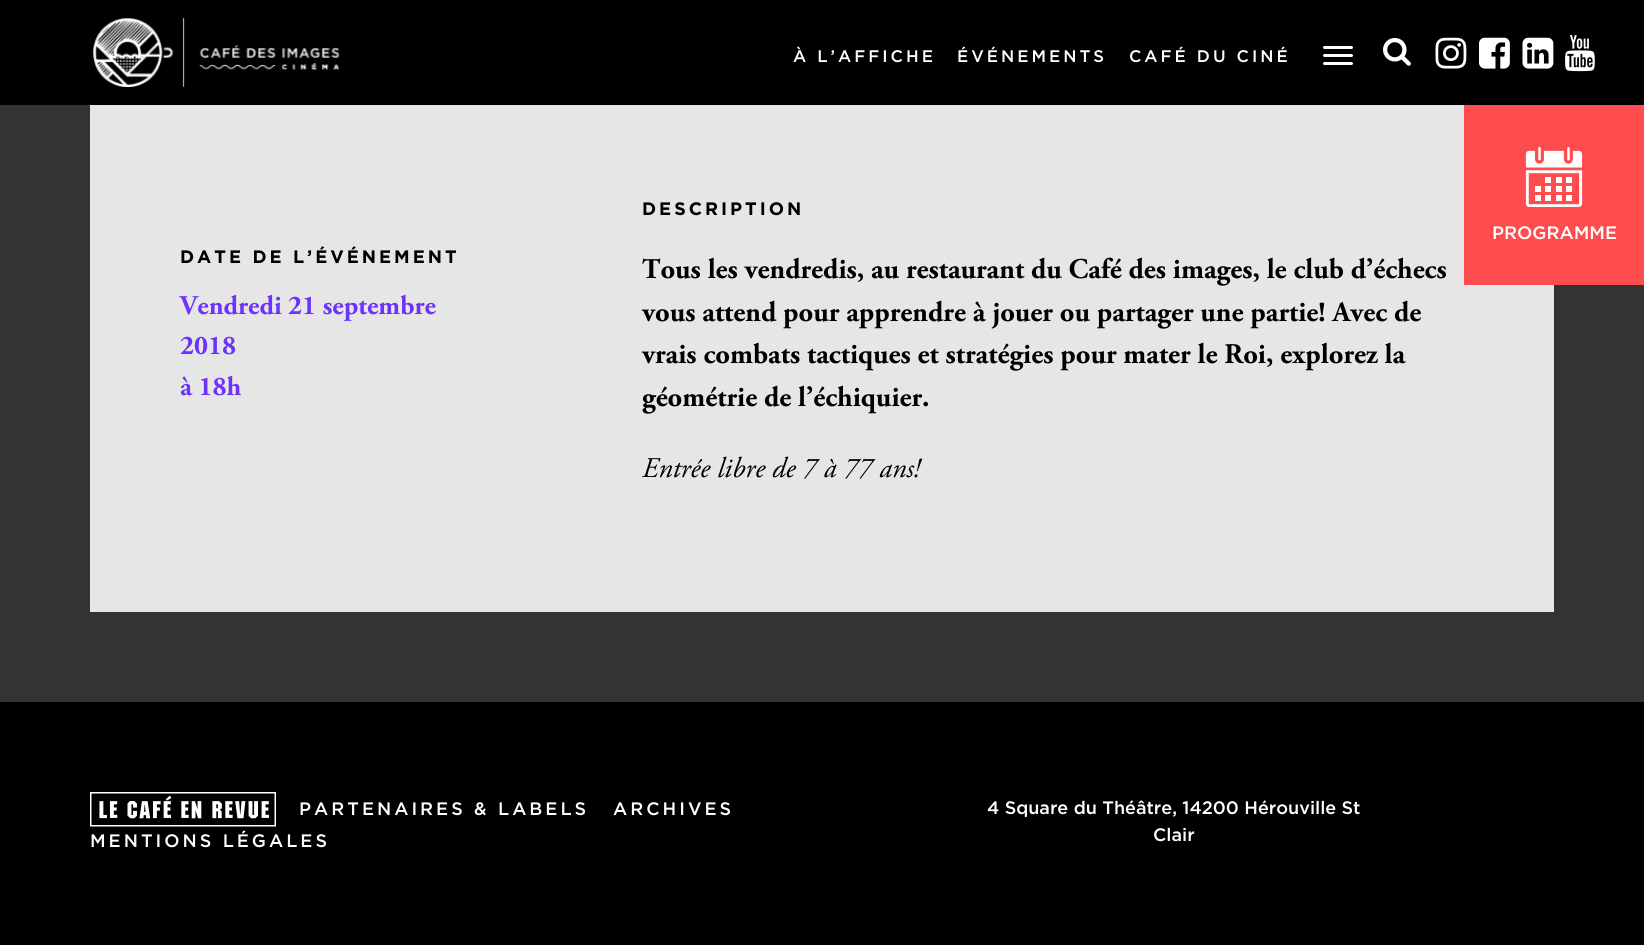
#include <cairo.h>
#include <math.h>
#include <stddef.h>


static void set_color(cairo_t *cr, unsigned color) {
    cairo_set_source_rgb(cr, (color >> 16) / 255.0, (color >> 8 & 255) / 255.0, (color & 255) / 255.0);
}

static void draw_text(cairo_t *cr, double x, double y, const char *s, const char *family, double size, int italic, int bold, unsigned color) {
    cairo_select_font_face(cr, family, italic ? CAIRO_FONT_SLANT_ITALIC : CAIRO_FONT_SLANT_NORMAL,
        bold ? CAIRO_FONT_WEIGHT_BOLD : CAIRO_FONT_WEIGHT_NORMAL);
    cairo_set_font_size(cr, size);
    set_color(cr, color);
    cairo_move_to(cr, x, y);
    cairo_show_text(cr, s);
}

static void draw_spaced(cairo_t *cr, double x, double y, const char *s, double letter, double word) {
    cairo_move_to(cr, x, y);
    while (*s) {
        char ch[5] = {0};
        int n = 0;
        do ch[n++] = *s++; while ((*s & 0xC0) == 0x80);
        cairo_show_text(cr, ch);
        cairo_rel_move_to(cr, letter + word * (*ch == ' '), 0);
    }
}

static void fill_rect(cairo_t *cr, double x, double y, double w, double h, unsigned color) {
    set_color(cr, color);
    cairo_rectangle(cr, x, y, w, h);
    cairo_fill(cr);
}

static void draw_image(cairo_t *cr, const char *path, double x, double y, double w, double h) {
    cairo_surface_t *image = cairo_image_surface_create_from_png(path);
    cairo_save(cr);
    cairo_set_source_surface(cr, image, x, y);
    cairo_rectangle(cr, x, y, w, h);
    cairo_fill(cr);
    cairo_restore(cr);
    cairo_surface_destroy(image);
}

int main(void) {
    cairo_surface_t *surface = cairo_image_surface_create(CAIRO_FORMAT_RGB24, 1644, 945);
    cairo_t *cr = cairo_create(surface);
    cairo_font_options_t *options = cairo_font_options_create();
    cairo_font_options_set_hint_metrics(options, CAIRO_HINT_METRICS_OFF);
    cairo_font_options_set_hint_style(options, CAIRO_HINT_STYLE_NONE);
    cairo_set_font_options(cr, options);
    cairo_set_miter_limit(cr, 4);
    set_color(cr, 0x333333);
    cairo_paint(cr);
    fill_rect(cr, 0, 0, 1644, 105, 0x000000);
    draw_image(cr, "assets/img1.png", 93, 18, 246, 69);
    cairo_select_font_face(cr, "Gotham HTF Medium", CAIRO_FONT_SLANT_NORMAL, CAIRO_FONT_WEIGHT_NORMAL);
    cairo_set_font_size(cr, 16.75);
    set_color(cr, 0xFFFFFF);
    draw_spaced(cr, 793, 62, "À L’AFFICHE", 3, 0);
    draw_spaced(cr, 957, 62, "ÉVÉNEMENTS", 3, 0);
    draw_spaced(cr, 1129, 62, "CAFÉ DU CINÉ", 3, 0);
    draw_image(cr, "assets/img2.png", 1323, 46, 30, 19);
    draw_image(cr, "assets/img3.png", 1383, 37, 28, 29);
    draw_image(cr, "assets/img4.png", 1435, 37, 32, 32);
    draw_image(cr, "assets/img5.png", 1479, 37, 31, 32);
    draw_image(cr, "assets/img6.png", 1522, 37, 32, 32);
    draw_image(cr, "assets/img7.png", 1565, 35, 30, 37);
    fill_rect(cr, 90, 105, 1464, 507, 0xE6E6E6);
    cairo_select_font_face(cr, "Gotham HTF", CAIRO_FONT_SLANT_NORMAL, CAIRO_FONT_WEIGHT_BOLD);
    cairo_set_font_size(cr, 18);
    set_color(cr, 0x000000);
    draw_spaced(cr, 180, 263, "DATE DE L’ÉVÉNEMENT", 3, 0);
    draw_text(cr, 180, 314, "Vendredi 21 septembre", "Adobe Garamond", 27, 0, 1, 0x6E32FF);
    draw_text(cr, 180, 354, "2018", "Adobe Garamond", 27, 0, 1, 0x6E32FF);
    draw_text(cr, 180, 395, "à 18h", "Adobe Garamond", 27, 0, 1, 0x6E32FF);
    cairo_select_font_face(cr, "Gotham HTF", CAIRO_FONT_SLANT_NORMAL, CAIRO_FONT_WEIGHT_BOLD);
    cairo_set_font_size(cr, 18);
    set_color(cr, 0x000000);
    draw_spaced(cr, 642, 215, "DESCRIPTION", 3, 0);
    draw_text(cr, 642, 278, "Tous les vendredis, au restaurant du Café des images, le club d’échecs", "Adobe Garamond", 28.5, 0, 1, 0x000000);
    draw_text(cr, 642, 321, "vous attend pour apprendre à jouer ou partager une partie! Avec de", "Adobe Garamond", 28.5, 0, 1, 0x000000);
    draw_text(cr, 642, 363, "vrais combats tactiques et stratégies pour mater le Roi, explorez la", "Adobe Garamond", 28.5, 0, 1, 0x000000);
    draw_text(cr, 642, 406, "géométrie de l’échiquier.", "Adobe Garamond", 28.5, 0, 1, 0x000000);
    draw_text(cr, 642, 477, "Entrée libre de 7 à 77 ans!", "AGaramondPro", 28.5, 1, 0, 0x000000);
    fill_rect(cr, 1464, 105, 180, 180, 0xFF4C4F);
    draw_image(cr, "assets/img8.png", 1525, 147, 58, 60);
    draw_text(cr, 1492, 239, "PROGRAMME", "Gotham HTF Medium", 18, 0, 0, 0xFFFFFF);
    fill_rect(cr, 0, 702, 1644, 243, 0x000000);
    draw_image(cr, "assets/img9.png", 90, 792, 186, 35);
    set_color(cr, 0xFFFFFF);
    draw_spaced(cr, 299, 815, "PARTENAIRES & LABELS", 3, 0);
    draw_spaced(cr, 613, 815, "ARCHIVES", 3, 0);
    draw_spaced(cr, 90, 847, "MENTIONS LÉGALES", 3, 0);
    draw_text(cr, 987, 814, "4 Square du Théâtre, 14200 Hérouville St", "Gotham HTF Medium", 18, 0, 0, 0xFFFFFF);
    draw_text(cr, 1153, 841, "Clair", "Gotham HTF Medium", 18, 0, 0, 0xFFFFFF);
    cairo_surface_write_to_png(surface, "output.png");
    cairo_font_options_destroy(options);
    cairo_destroy(cr);
    cairo_surface_destroy(surface);
    return 0;
}
